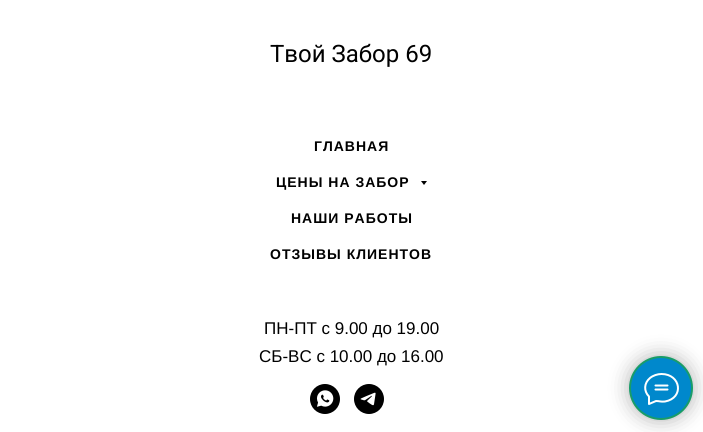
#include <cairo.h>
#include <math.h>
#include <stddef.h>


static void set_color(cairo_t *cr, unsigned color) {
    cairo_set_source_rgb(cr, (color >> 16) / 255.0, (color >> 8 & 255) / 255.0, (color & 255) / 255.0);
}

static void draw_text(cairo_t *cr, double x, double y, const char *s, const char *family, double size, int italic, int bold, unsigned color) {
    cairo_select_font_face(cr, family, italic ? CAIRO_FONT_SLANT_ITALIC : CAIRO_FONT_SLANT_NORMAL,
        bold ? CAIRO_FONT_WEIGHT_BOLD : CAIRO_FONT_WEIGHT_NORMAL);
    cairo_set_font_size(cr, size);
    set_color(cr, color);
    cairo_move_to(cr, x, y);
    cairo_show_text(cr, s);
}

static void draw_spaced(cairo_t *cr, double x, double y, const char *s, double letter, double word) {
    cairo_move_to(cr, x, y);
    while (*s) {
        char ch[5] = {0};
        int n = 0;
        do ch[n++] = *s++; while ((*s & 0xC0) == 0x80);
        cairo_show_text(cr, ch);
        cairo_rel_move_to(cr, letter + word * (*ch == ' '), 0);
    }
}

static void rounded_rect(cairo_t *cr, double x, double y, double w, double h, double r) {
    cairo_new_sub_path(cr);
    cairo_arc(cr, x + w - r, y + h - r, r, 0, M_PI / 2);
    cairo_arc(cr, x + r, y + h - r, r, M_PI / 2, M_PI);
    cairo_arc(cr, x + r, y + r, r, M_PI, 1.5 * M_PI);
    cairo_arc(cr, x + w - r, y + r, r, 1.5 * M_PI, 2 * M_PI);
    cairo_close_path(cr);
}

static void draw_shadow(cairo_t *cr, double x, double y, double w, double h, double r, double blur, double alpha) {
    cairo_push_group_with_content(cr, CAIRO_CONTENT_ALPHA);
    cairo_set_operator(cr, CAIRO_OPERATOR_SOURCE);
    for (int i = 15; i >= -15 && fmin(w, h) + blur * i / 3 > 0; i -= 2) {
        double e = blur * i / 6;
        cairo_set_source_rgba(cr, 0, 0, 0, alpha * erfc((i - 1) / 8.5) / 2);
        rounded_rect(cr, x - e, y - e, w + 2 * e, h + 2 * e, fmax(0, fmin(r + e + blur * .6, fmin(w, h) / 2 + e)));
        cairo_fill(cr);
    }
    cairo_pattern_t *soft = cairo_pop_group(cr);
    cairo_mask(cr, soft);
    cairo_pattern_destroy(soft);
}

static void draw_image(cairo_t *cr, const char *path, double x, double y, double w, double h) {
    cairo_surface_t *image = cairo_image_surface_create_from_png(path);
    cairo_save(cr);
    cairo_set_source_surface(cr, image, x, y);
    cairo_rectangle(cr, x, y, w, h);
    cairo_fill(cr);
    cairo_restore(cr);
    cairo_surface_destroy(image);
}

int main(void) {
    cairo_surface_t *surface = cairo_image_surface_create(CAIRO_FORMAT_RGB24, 703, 432);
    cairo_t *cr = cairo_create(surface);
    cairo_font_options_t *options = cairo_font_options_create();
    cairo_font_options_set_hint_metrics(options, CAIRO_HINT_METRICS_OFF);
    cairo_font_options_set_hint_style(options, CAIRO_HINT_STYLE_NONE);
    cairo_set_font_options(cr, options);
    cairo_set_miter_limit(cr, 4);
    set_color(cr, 0xFFFFFF);
    cairo_paint(cr);
    draw_text(cr, 270, 62, "Твой Забор 69", "Roboto", 24, 0, 0, 0x000000);
    cairo_select_font_face(cr, "Liberation Sans", CAIRO_FONT_SLANT_NORMAL, CAIRO_FONT_WEIGHT_BOLD);
    cairo_set_font_size(cr, 14);
    draw_spaced(cr, 314, 151, "ГЛАВНАЯ", 1, 0);
    draw_spaced(cr, 276, 187, "ЦЕНЫ НА ЗАБОР", 1, 0);
    cairo_new_path(cr);
    cairo_move_to(cr, 421, 181);
    cairo_line_to(cr, 427, 181);
    cairo_line_to(cr, 424, 185);
    cairo_close_path(cr);
    cairo_fill(cr);
    draw_spaced(cr, 291, 223, "НАШИ РАБОТЫ", 1, 0);
    draw_spaced(cr, 270, 259, "ОТЗЫВЫ КЛИЕНТОВ", 1, 0);
    draw_text(cr, 264, 334, "ПН-ПТ с 9.00 до 19.00", "Liberation Sans", 17, 0, 0, 0x000000);
    draw_text(cr, 259, 362, "СБ-ВС с 10.00 до 16.00", "Liberation Sans", 17, 0, 0, 0x000000);
    draw_image(cr, "assets/img1.png", 310, 384, 30, 30);
    draw_image(cr, "assets/img2.png", 354, 384, 30, 30);
    set_color(cr, 0x000000);
    draw_shadow(cr, 629, 356, 64, 64, 32, 10, 0.3);
    set_color(cr, 0x0088CC);
    cairo_arc(cr, 661, 388, 31, 0, 2 * M_PI);
    cairo_fill_preserve(cr);
    set_color(cr, 0x199C68);
    cairo_stroke(cr);
    cairo_new_path(cr);
    cairo_move_to(cr, 655.5, 385.5);
    cairo_line_to(cr, 667.5, 385.5);
    cairo_move_to(cr, 655.5, 389.5);
    cairo_line_to(cr, 667.5, 389.5);
    cairo_move_to(cr, 649, 396.5);
    cairo_curve_to(cr, 643.5, 391, 644, 383, 650, 378);
    cairo_curve_to(cr, 653, 375.5, 657.5, 374, 661.5, 374);
    cairo_curve_to(cr, 681, 374, 684.5, 398, 665, 401.5);
    cairo_curve_to(cr, 661, 402, 659.5, 401, 656, 401);
    cairo_line_to(cr, 649, 404);
    cairo_line_to(cr, 649, 397);
    cairo_close_path(cr);
    set_color(cr, 0xFFFFFF);
    cairo_set_line_cap(cr, CAIRO_LINE_CAP_ROUND);
    cairo_set_line_join(cr, CAIRO_LINE_JOIN_ROUND);
    cairo_stroke(cr);
    cairo_surface_write_to_png(surface, "output.png");
    cairo_font_options_destroy(options);
    cairo_destroy(cr);
    cairo_surface_destroy(surface);
    return 0;
}
